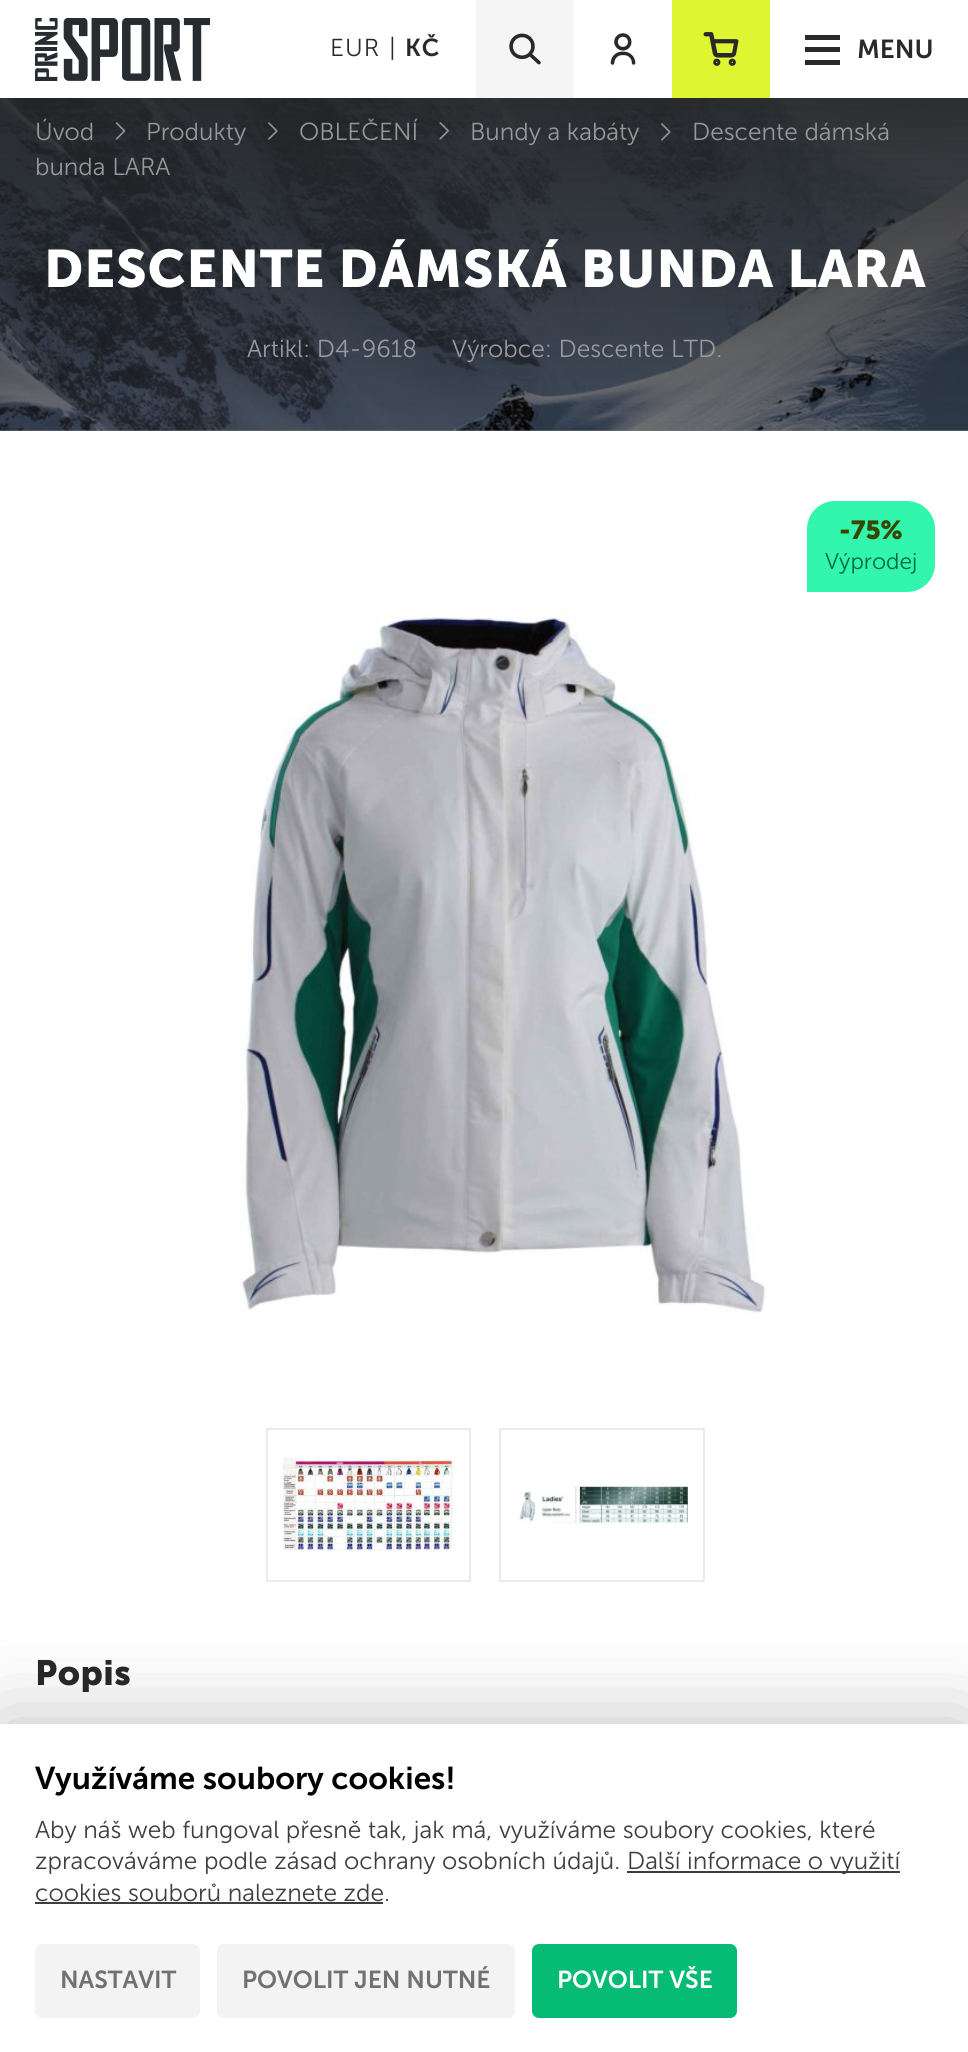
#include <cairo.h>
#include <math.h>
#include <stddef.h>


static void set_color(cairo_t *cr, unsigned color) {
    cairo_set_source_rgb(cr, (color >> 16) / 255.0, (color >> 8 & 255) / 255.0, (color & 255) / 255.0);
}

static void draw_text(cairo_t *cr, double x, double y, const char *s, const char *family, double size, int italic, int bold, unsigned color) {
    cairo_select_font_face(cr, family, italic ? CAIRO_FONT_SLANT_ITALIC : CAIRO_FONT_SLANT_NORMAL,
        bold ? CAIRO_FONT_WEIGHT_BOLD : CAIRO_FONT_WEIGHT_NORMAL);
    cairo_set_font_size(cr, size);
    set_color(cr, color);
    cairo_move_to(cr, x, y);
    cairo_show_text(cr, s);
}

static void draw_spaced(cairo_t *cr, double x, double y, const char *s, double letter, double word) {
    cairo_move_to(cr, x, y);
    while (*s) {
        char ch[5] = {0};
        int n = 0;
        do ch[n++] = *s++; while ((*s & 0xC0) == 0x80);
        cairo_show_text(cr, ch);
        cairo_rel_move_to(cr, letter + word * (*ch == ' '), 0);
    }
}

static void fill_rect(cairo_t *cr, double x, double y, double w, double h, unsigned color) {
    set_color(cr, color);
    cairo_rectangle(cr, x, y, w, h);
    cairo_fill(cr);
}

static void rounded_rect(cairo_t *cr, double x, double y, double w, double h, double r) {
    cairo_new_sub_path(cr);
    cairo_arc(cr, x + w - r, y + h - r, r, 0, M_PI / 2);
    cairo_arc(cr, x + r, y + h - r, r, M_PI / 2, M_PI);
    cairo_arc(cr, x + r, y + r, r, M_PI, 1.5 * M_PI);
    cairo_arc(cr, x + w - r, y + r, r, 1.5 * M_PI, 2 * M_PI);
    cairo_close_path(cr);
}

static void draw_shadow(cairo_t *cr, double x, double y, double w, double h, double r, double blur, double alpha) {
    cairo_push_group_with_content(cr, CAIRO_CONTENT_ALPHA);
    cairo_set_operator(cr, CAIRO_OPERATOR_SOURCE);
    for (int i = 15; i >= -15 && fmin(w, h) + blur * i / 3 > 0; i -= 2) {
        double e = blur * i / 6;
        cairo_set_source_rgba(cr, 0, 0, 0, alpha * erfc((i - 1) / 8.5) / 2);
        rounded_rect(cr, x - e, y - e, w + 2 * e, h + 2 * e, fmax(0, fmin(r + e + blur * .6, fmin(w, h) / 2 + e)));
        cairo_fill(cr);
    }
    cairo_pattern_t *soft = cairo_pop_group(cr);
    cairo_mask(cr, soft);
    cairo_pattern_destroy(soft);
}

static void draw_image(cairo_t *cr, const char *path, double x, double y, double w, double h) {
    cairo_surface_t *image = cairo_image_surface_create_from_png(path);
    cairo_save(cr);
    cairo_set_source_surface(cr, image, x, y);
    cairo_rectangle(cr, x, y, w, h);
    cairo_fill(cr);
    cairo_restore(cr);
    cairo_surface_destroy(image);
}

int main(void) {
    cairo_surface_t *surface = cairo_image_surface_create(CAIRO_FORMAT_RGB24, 968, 2052);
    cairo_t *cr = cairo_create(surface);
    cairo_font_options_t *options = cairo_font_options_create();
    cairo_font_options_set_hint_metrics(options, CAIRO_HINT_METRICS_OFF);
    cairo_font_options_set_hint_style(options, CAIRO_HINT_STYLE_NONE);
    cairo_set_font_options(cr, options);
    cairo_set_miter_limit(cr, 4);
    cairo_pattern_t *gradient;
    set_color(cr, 0xFFFFFF);
    cairo_paint(cr);
    draw_image(cr, "assets/img5.png", 0, 98, 968, 333);
    gradient = cairo_pattern_create_linear(485, 0, 485, 431);
    cairo_pattern_add_color_stop_rgba(gradient, 0, 0.161, 0.161, 0.161, 1);
    cairo_pattern_add_color_stop_rgba(gradient, 1, 0, 0, 0, 0.53);
    cairo_set_source(cr, gradient);
    cairo_pattern_destroy(gradient);
    cairo_rectangle(cr, 0, 98, 968, 333);
    cairo_fill(cr);
    draw_image(cr, "assets/img6.png", 115, 122, 11, 18);
    draw_image(cr, "assets/img7.png", 268, 122, 10, 18);
    draw_image(cr, "assets/img8.png", 439, 122, 10, 18);
    draw_image(cr, "assets/img9.png", 661, 123, 10, 18);
    set_color(cr, 0x000000);
    draw_shadow(cr, 0, 0, 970, 98, 0, 26, 0.1);
    fill_rect(cr, 0, 0, 968, 98, 0xFFFFFF);
    draw_image(cr, "assets/img1.png", 35, 18, 175, 63);
    cairo_select_font_face(cr, "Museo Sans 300 Light", CAIRO_FONT_SLANT_NORMAL, CAIRO_FONT_WEIGHT_NORMAL);
    cairo_set_font_size(cr, 24.5);
    set_color(cr, 0x292929);
    draw_spaced(cr, 330, 56, "EUR", 1, 0);
    draw_text(cr, 389, 56, "|", "Museo Sans 300 Light", 24.5, 0, 0, 0x292929);
    cairo_select_font_face(cr, "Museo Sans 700 SemiBold", CAIRO_FONT_SLANT_NORMAL, CAIRO_FONT_WEIGHT_NORMAL);
    draw_spaced(cr, 405, 56, "KČ", 1, 0);
    fill_rect(cr, 476, 0, 98, 98, 0xF5F5F5);
    draw_image(cr, "assets/img2.png", 509, 33, 32, 32);
    draw_image(cr, "assets/img3.png", 610, 33, 26, 32);
    fill_rect(cr, 672, 0, 98, 98, 0xDEF632);
    draw_image(cr, "assets/img4.png", 703, 32, 36, 34);
    fill_rect(cr, 805, 35, 35, 5, 0x292929);
    fill_rect(cr, 805, 47, 35, 5, 0x292929);
    draw_text(cr, 857, 58, "MENU", "Museo Sans 700 SemiBold", 26, 0, 0, 0x292929);
    fill_rect(cr, 805, 60, 35, 5, 0x292929);
    draw_text(cr, 35, 140, "Úvod", "Museo Sans 300 Light", 24.5, 0, 0, 0x97989A);
    draw_text(cr, 146, 140, "Produkty", "Museo Sans 300 Light", 24.5, 0, 0, 0x97989A);
    draw_text(cr, 299, 140, "OBLEČENÍ", "Museo Sans 300 Light", 24.5, 0, 0, 0x97989A);
    draw_text(cr, 470, 140, "Bundy a kabáty", "Museo Sans 300 Light", 24.5, 0, 0, 0x97989A);
    draw_text(cr, 692, 140, "Descente dámská", "Museo Sans 300 Light", 24.5, 0, 0, 0x97989A);
    draw_text(cr, 35, 175, "bunda LARA", "Museo Sans 300 Light", 24.5, 0, 0, 0x97989A);
    cairo_select_font_face(cr, "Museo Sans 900", CAIRO_FONT_SLANT_NORMAL, CAIRO_FONT_WEIGHT_BOLD);
    cairo_set_font_size(cr, 52.5);
    set_color(cr, 0xFFFFFF);
    draw_spaced(cr, 44, 287, "DESCENTE DÁMSKÁ BUNDA LARA", 1.05, 0);
    draw_text(cr, 247, 357, "Artikl: D4-9618", "Museo Sans 300 Light", 24.5, 0, 0, 0x989BA1);
    draw_text(cr, 452, 357, "Výrobce: Descente LTD.", "Museo Sans 300 Light", 24.5, 0, 0, 0x989BA1);
    set_color(cr, 0x32F6AD);
    cairo_new_path(cr);
    cairo_move_to(cr, 835, 501);
    cairo_line_to(cr, 907, 501);
    cairo_curve_to(cr, 922.5, 501, 935, 513.5, 935, 529);
    cairo_line_to(cr, 935, 564);
    cairo_curve_to(cr, 935, 579.5, 922.5, 592, 907, 592);
    cairo_line_to(cr, 807, 592);
    cairo_line_to(cr, 807, 529);
    cairo_curve_to(cr, 807, 513.5, 819.5, 501, 835, 501);
    cairo_close_path(cr);
    cairo_fill(cr);
    draw_text(cr, 839, 539, "-75%", "Museo Sans 900", 26, 0, 1, 0x384700);
    draw_text(cr, 825, 569, "Výprodej", "Museo Sans 300 Light", 22.75, 0, 0, 0x006741);
    draw_image(cr, "assets/img10.png", 239, 607, 526, 707);
    cairo_rectangle(cr, 267, 1429, 203, 152);
    set_color(cr, 0xEBEBEB);
    cairo_stroke(cr);
    draw_image(cr, "assets/img11.png", 282, 1457, 173, 96);
    cairo_rectangle(cr, 500, 1429, 204, 152);
    cairo_stroke(cr);
    draw_image(cr, "assets/img12.png", 519, 1485, 169, 39);
    cairo_select_font_face(cr, "Museo Sans 900", CAIRO_FONT_SLANT_NORMAL, CAIRO_FONT_WEIGHT_BOLD);
    cairo_set_font_size(cr, 35);
    set_color(cr, 0x292929);
    draw_spaced(cr, 35, 1685, "Popis", 0.5, 0);
    set_color(cr, 0x000000);
    draw_shadow(cr, 0, 1724, 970, 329, 0, 44, 0.25);
    fill_rect(cr, 0, 1724, 968, 328, 0xFFFFFF);
    draw_text(cr, 35, 1789, "Využíváme soubory cookies!", "Museo Sans 700 SemiBold", 31.5, 0, 0, 0x000000);
    draw_text(cr, 35, 1838, "Aby náš web fungoval přesně tak, jak má, využíváme soubory cookies, které", "Museo Sans 300 Light", 24.5, 0, 0, 0x3E3E3E);
    draw_text(cr, 35, 1869, "zpracováváme podle zásad ochrany osobních údajů.", "Museo Sans 300 Light", 24.5, 0, 0, 0x3E3E3E);
    fill_rect(cr, 627, 1871, 273, 2, 0x3E3E3E);
    draw_text(cr, 627, 1869, "Další informace o využití", "Museo Sans 300 Light", 24.5, 0, 0, 0x3E3E3E);
    draw_text(cr, 35, 1901, "cookies souborů naleznete zde.", "Museo Sans 300 Light", 24.5, 0, 0, 0x3E3E3E);
    fill_rect(cr, 35, 1902, 348, 2, 0x3E3E3E);
    set_color(cr, 0xF3F3F3);
    rounded_rect(cr, 35, 1944, 165, 74, 7);
    cairo_fill(cr);
    draw_text(cr, 60, 1988, "NASTAVIT", "Museo Sans 700 SemiBold", 24.5, 0, 0, 0x717171);
    set_color(cr, 0xF3F3F3);
    rounded_rect(cr, 217, 1944, 298, 74, 7);
    cairo_fill(cr);
    draw_text(cr, 242, 1988, "POVOLIT JEN NUTNÉ", "Museo Sans 700 SemiBold", 24.5, 0, 0, 0x717171);
    set_color(cr, 0x06BB73);
    rounded_rect(cr, 532, 1944, 205, 74, 7);
    cairo_fill(cr);
    draw_text(cr, 557, 1988, "POVOLIT VŠE", "Museo Sans 700 SemiBold", 24.5, 0, 0, 0xFFFFFF);
    cairo_surface_write_to_png(surface, "output.png");
    cairo_font_options_destroy(options);
    cairo_destroy(cr);
    cairo_surface_destroy(surface);
    return 0;
}
